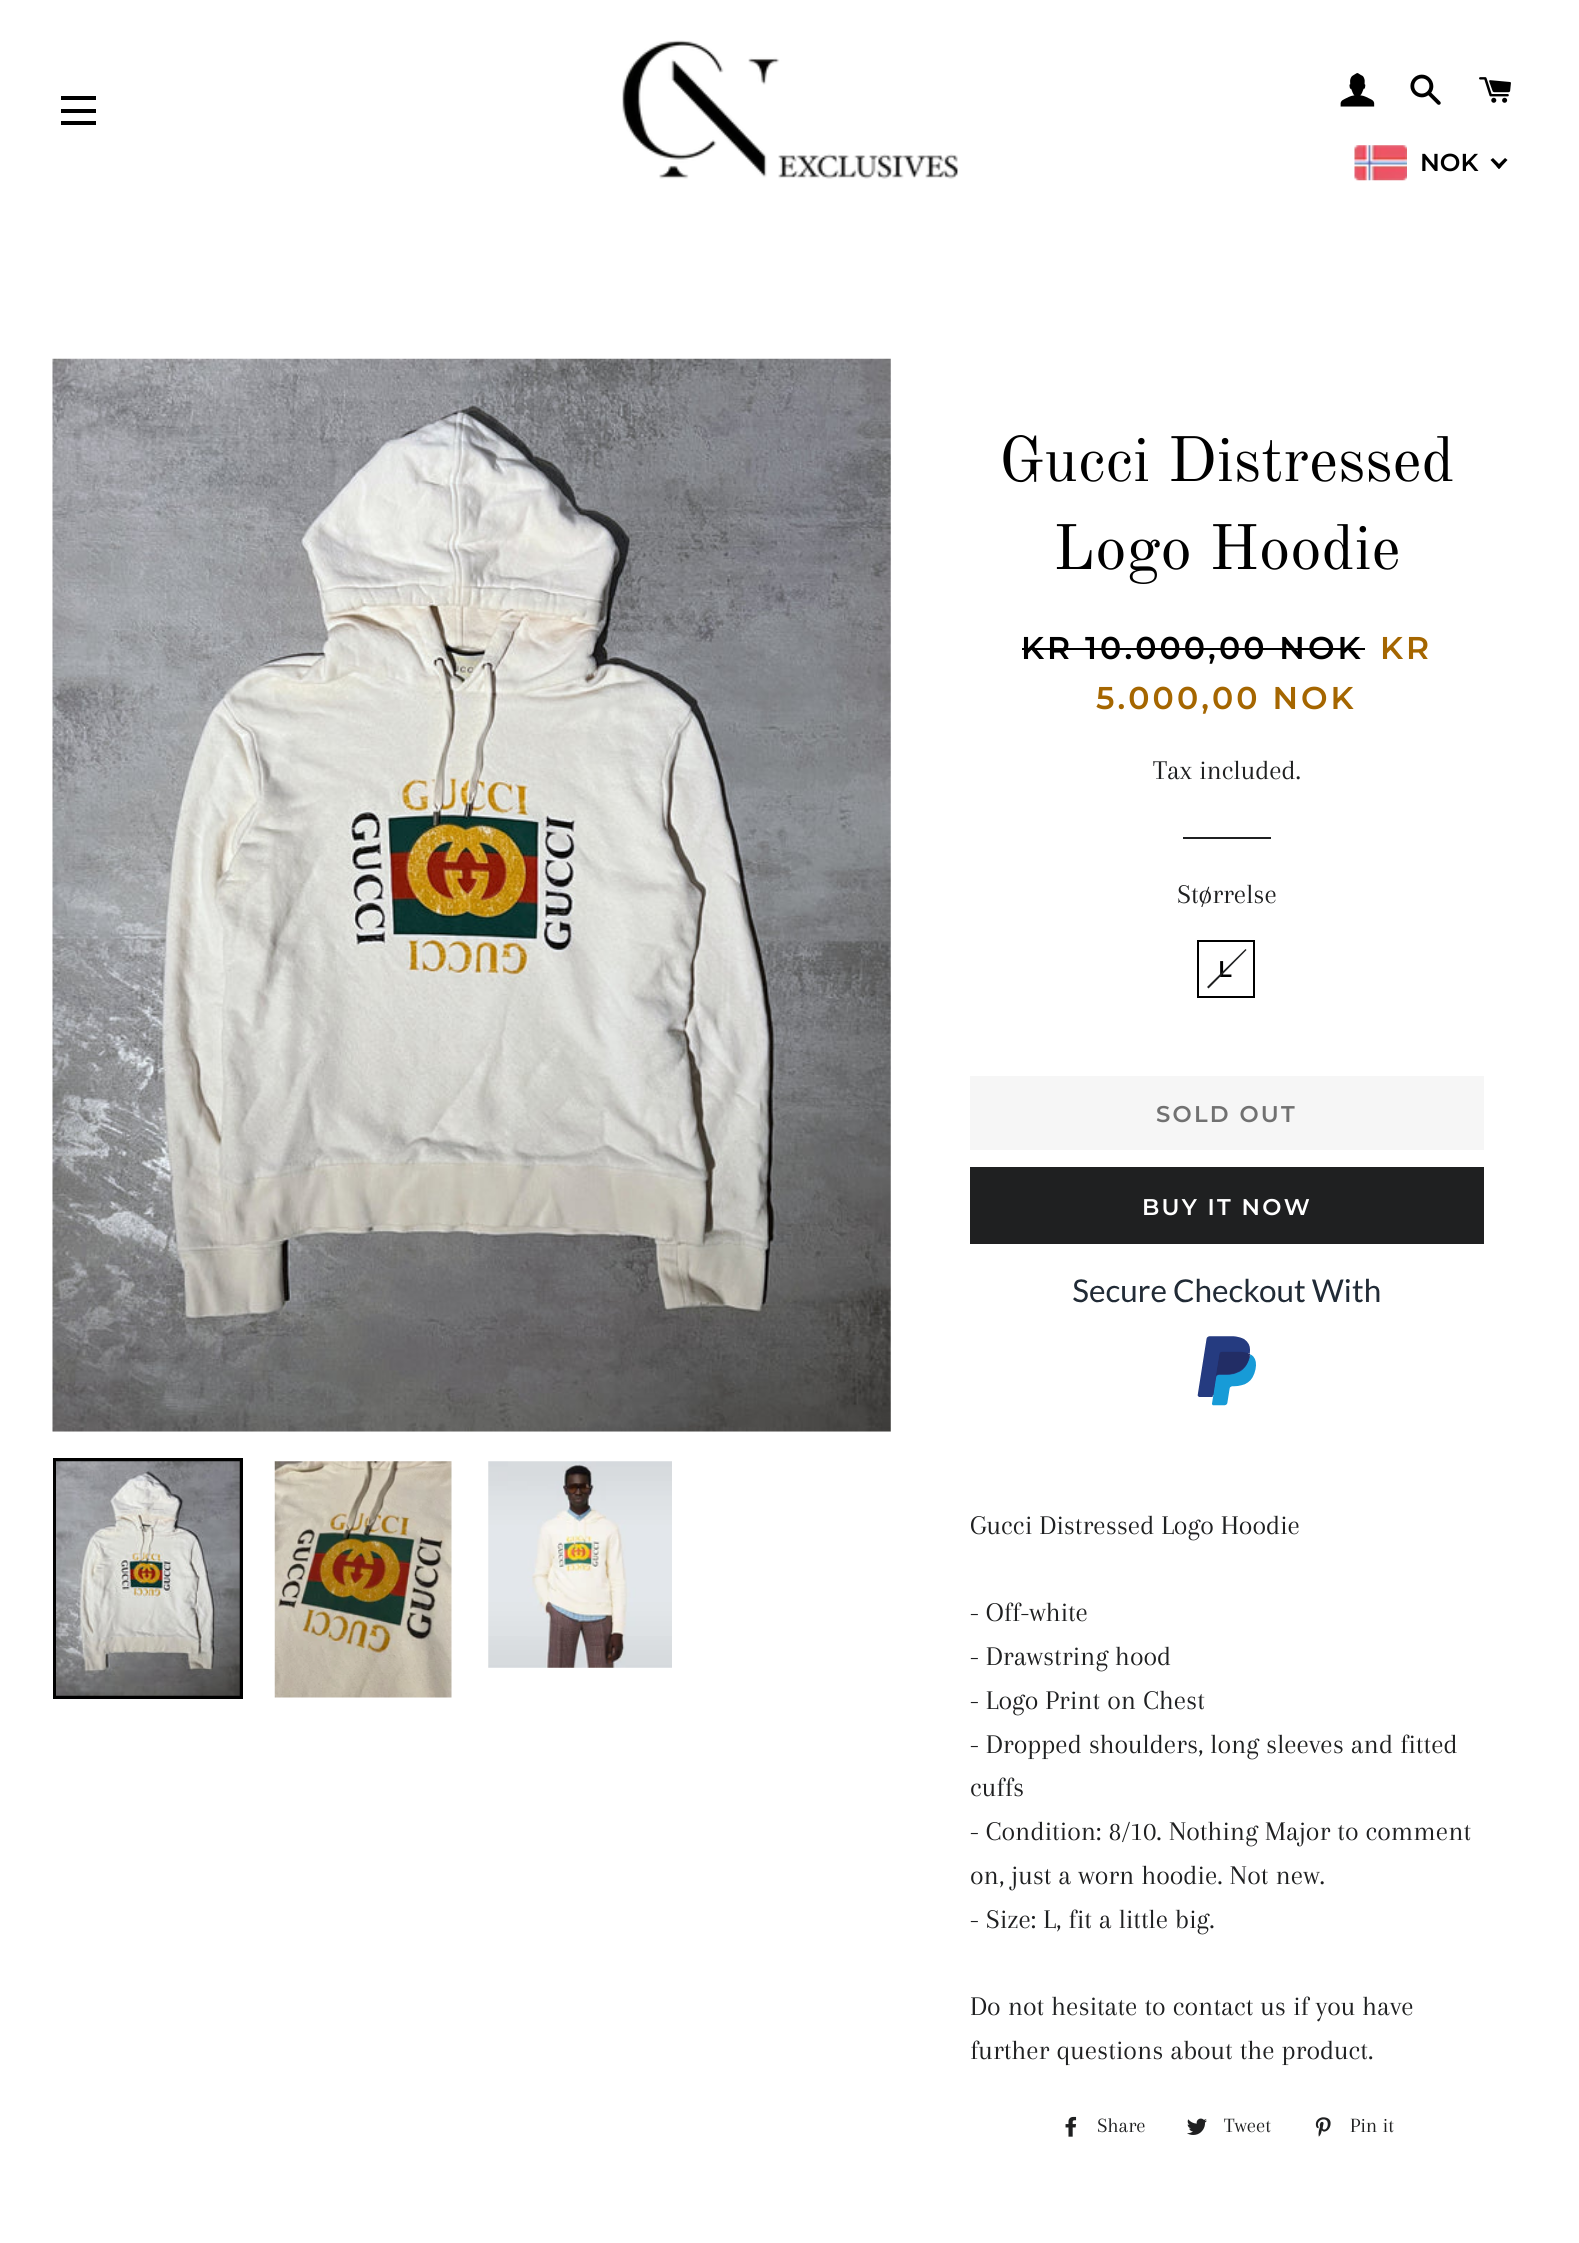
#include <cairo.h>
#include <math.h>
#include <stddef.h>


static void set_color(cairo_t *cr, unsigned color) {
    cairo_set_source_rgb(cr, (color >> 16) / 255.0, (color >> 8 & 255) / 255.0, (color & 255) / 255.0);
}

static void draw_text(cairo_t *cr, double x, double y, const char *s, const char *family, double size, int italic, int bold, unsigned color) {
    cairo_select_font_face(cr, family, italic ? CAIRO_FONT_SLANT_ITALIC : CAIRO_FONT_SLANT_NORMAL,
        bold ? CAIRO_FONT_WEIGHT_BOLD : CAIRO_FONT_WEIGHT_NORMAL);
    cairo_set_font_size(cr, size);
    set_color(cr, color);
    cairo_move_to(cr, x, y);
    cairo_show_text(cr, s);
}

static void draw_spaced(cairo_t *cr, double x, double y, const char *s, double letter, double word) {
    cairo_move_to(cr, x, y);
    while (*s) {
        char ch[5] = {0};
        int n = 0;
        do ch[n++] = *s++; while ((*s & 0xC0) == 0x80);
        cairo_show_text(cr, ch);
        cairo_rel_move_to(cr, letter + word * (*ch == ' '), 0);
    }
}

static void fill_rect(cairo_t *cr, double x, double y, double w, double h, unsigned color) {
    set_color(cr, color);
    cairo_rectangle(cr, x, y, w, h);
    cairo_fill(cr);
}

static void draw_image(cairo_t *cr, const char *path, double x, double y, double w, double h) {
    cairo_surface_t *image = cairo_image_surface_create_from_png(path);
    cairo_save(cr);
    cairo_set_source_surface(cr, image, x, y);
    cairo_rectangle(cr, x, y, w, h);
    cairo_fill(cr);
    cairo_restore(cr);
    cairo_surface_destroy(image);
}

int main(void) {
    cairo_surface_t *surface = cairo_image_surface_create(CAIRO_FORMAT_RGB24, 1579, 2243);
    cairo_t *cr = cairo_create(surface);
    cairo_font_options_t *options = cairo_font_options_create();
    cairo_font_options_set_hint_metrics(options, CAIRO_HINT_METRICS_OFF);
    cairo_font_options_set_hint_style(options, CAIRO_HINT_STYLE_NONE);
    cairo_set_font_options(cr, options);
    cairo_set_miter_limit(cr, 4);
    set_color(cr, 0xFFFFFF);
    cairo_paint(cr);
    fill_rect(cr, 61, 96, 35, 4, 0x000000);
    fill_rect(cr, 61, 109, 35, 4, 0x000000);
    fill_rect(cr, 61, 121, 35, 4, 0x000000);
    draw_image(cr, "assets/img1.png", 622, 40, 337, 139);
    draw_image(cr, "assets/img2.png", 1340, 73, 35, 34);
    draw_image(cr, "assets/img3.png", 1410, 74, 31, 31);
    draw_image(cr, "assets/img4.png", 1479, 77, 32, 26);
    draw_image(cr, "assets/img5.png", 1354, 145, 53, 36);
    draw_text(cr, 1420, 171, "NOK", "Montserrat SemiBold", 24.5, 0, 0, 0x000000);
    cairo_new_path(cr);
    cairo_move_to(cr, 1505, 158);
    cairo_line_to(cr, 1507.5, 160);
    cairo_line_to(cr, 1499, 169);
    cairo_line_to(cr, 1496.5, 166.5);
    cairo_close_path(cr);
    cairo_fill(cr);
    cairo_new_path(cr);
    cairo_move_to(cr, 1493, 158);
    cairo_line_to(cr, 1501.5, 166.5);
    cairo_line_to(cr, 1499, 169);
    cairo_line_to(cr, 1490.5, 160);
    cairo_close_path(cr);
    cairo_fill(cr);
    fill_rect(cr, 53, 359, 838, 1073, 0xF6F6F6);
    draw_image(cr, "assets/img6.png", 52, 358, 839, 1074);
    cairo_rectangle(cr, 55, 1460, 186, 237);
    set_color(cr, 0x000000);
    cairo_set_line_width(cr, 4);
    cairo_stroke(cr);
    draw_image(cr, "assets/img7.png", 56, 1461, 184, 235);
    draw_image(cr, "assets/img8.png", 274, 1461, 178, 237);
    draw_image(cr, "assets/img9.png", 488, 1461, 184, 207);
    draw_text(cr, 999, 481, "Gucci Distressed", "Old Standard TT", 63, 0, 0, 0x000000);
    draw_text(cr, 1053, 569, "Logo Hoodie", "Old Standard TT", 63, 0, 0, 0x000000);
    cairo_select_font_face(cr, "Montserrat SemiBold", CAIRO_FONT_SLANT_NORMAL, CAIRO_FONT_WEIGHT_NORMAL);
    cairo_set_font_size(cr, 31.5);
    draw_spaced(cr, 1021, 659, "KR 10.000,00 NOK", 3.1, 0);
    fill_rect(cr, 1022, 648, 343, 2, 0x000000);
    set_color(cr, 0xA56600);
    draw_spaced(cr, 1380, 659, "KR", 3.1, 0);
    draw_spaced(cr, 1096, 709, "5.000,00 NOK", 3.1, 0);
    draw_text(cr, 1153, 779, "Tax included.", "Arapey", 28, 0, 0, 0x1F2021);
    fill_rect(cr, 1183, 837, 88, 2, 0x1F2021);
    draw_text(cr, 1177, 903, "Størrelse", "Arapey", 28, 0, 0, 0x1F2021);
    cairo_rectangle(cr, 1198, 941, 56, 56);
    set_color(cr, 0x000000);
    cairo_set_line_width(cr, 2);
    cairo_stroke(cr);
    cairo_select_font_face(cr, "Montserrat SemiBold", CAIRO_FONT_SLANT_NORMAL, CAIRO_FONT_WEIGHT_NORMAL);
    cairo_set_font_size(cr, 22.75);
    draw_spaced(cr, 1218, 977, "L", 2.25, 0);
    set_color(cr, 0x1F2021);
    cairo_new_path(cr);
    cairo_move_to(cr, 1245.5, 949);
    cairo_line_to(cr, 1246.5, 950);
    cairo_line_to(cr, 1208.5, 988.5);
    cairo_line_to(cr, 1207, 987);
    cairo_close_path(cr);
    cairo_fill(cr);
    fill_rect(cr, 970, 1076, 514, 74, 0xF6F6F6);
    set_color(cr, 0x717171);
    draw_spaced(cr, 1156, 1122, "SOLD OUT", 2.25, 0);
    fill_rect(cr, 970, 1167, 514, 77, 0x1F2021);
    set_color(cr, 0xFFFFFF);
    draw_spaced(cr, 1142, 1215, "BUY IT NOW", 2.25, 0);
    draw_image(cr, "assets/img10.png", 1073, 1278, 307, 128);
    draw_text(cr, 970, 1534, "Gucci Distressed Logo Hoodie", "Arapey", 28, 0, 0, 0x1F2021);
    draw_text(cr, 970, 1621, "- Off-white", "Arapey", 28, 0, 0, 0x1F2021);
    draw_text(cr, 970, 1665, "- Drawstring hood", "Arapey", 28, 0, 0, 0x1F2021);
    draw_text(cr, 970, 1709, "- Logo Print on Chest", "Arapey", 28, 0, 0, 0x1F2021);
    draw_text(cr, 970, 1753, "- Dropped shoulders, long sleeves and fitted", "Arapey", 28, 0, 0, 0x1F2021);
    draw_text(cr, 970, 1796, "cuffs", "Arapey", 28, 0, 0, 0x1F2021);
    draw_text(cr, 970, 1840, "- Condition: 8/10. Nothing Major to comment", "Arapey", 28, 0, 0, 0x1F2021);
    draw_text(cr, 970, 1884, "on, just a worn hoodie. Not new.", "Arapey", 28, 0, 0, 0x1F2021);
    draw_text(cr, 970, 1928, "- Size: L, fit a little big.", "Arapey", 28, 0, 0, 0x1F2021);
    draw_text(cr, 970, 2015, "Do not hesitate to contact us if you have", "Arapey", 28, 0, 0, 0x1F2021);
    draw_text(cr, 970, 2059, "further questions about the product.", "Arapey", 28, 0, 0, 0x1F2021);
    draw_image(cr, "assets/img11.png", 1065, 2116, 12, 21);
    draw_text(cr, 1097, 2132, "Share", "Arapey", 21, 0, 0, 0x1F2021);
    draw_image(cr, "assets/img12.png", 1187, 2118, 20, 17);
    draw_text(cr, 1224, 2132, "Tweet", "Arapey", 21, 0, 0, 0x1F2021);
    draw_image(cr, "assets/img13.png", 1315, 2117, 16, 20);
    draw_text(cr, 1350, 2132, "Pin it", "Arapey", 21, 0, 0, 0x1F2021);
    cairo_surface_write_to_png(surface, "output.png");
    cairo_font_options_destroy(options);
    cairo_destroy(cr);
    cairo_surface_destroy(surface);
    return 0;
}
